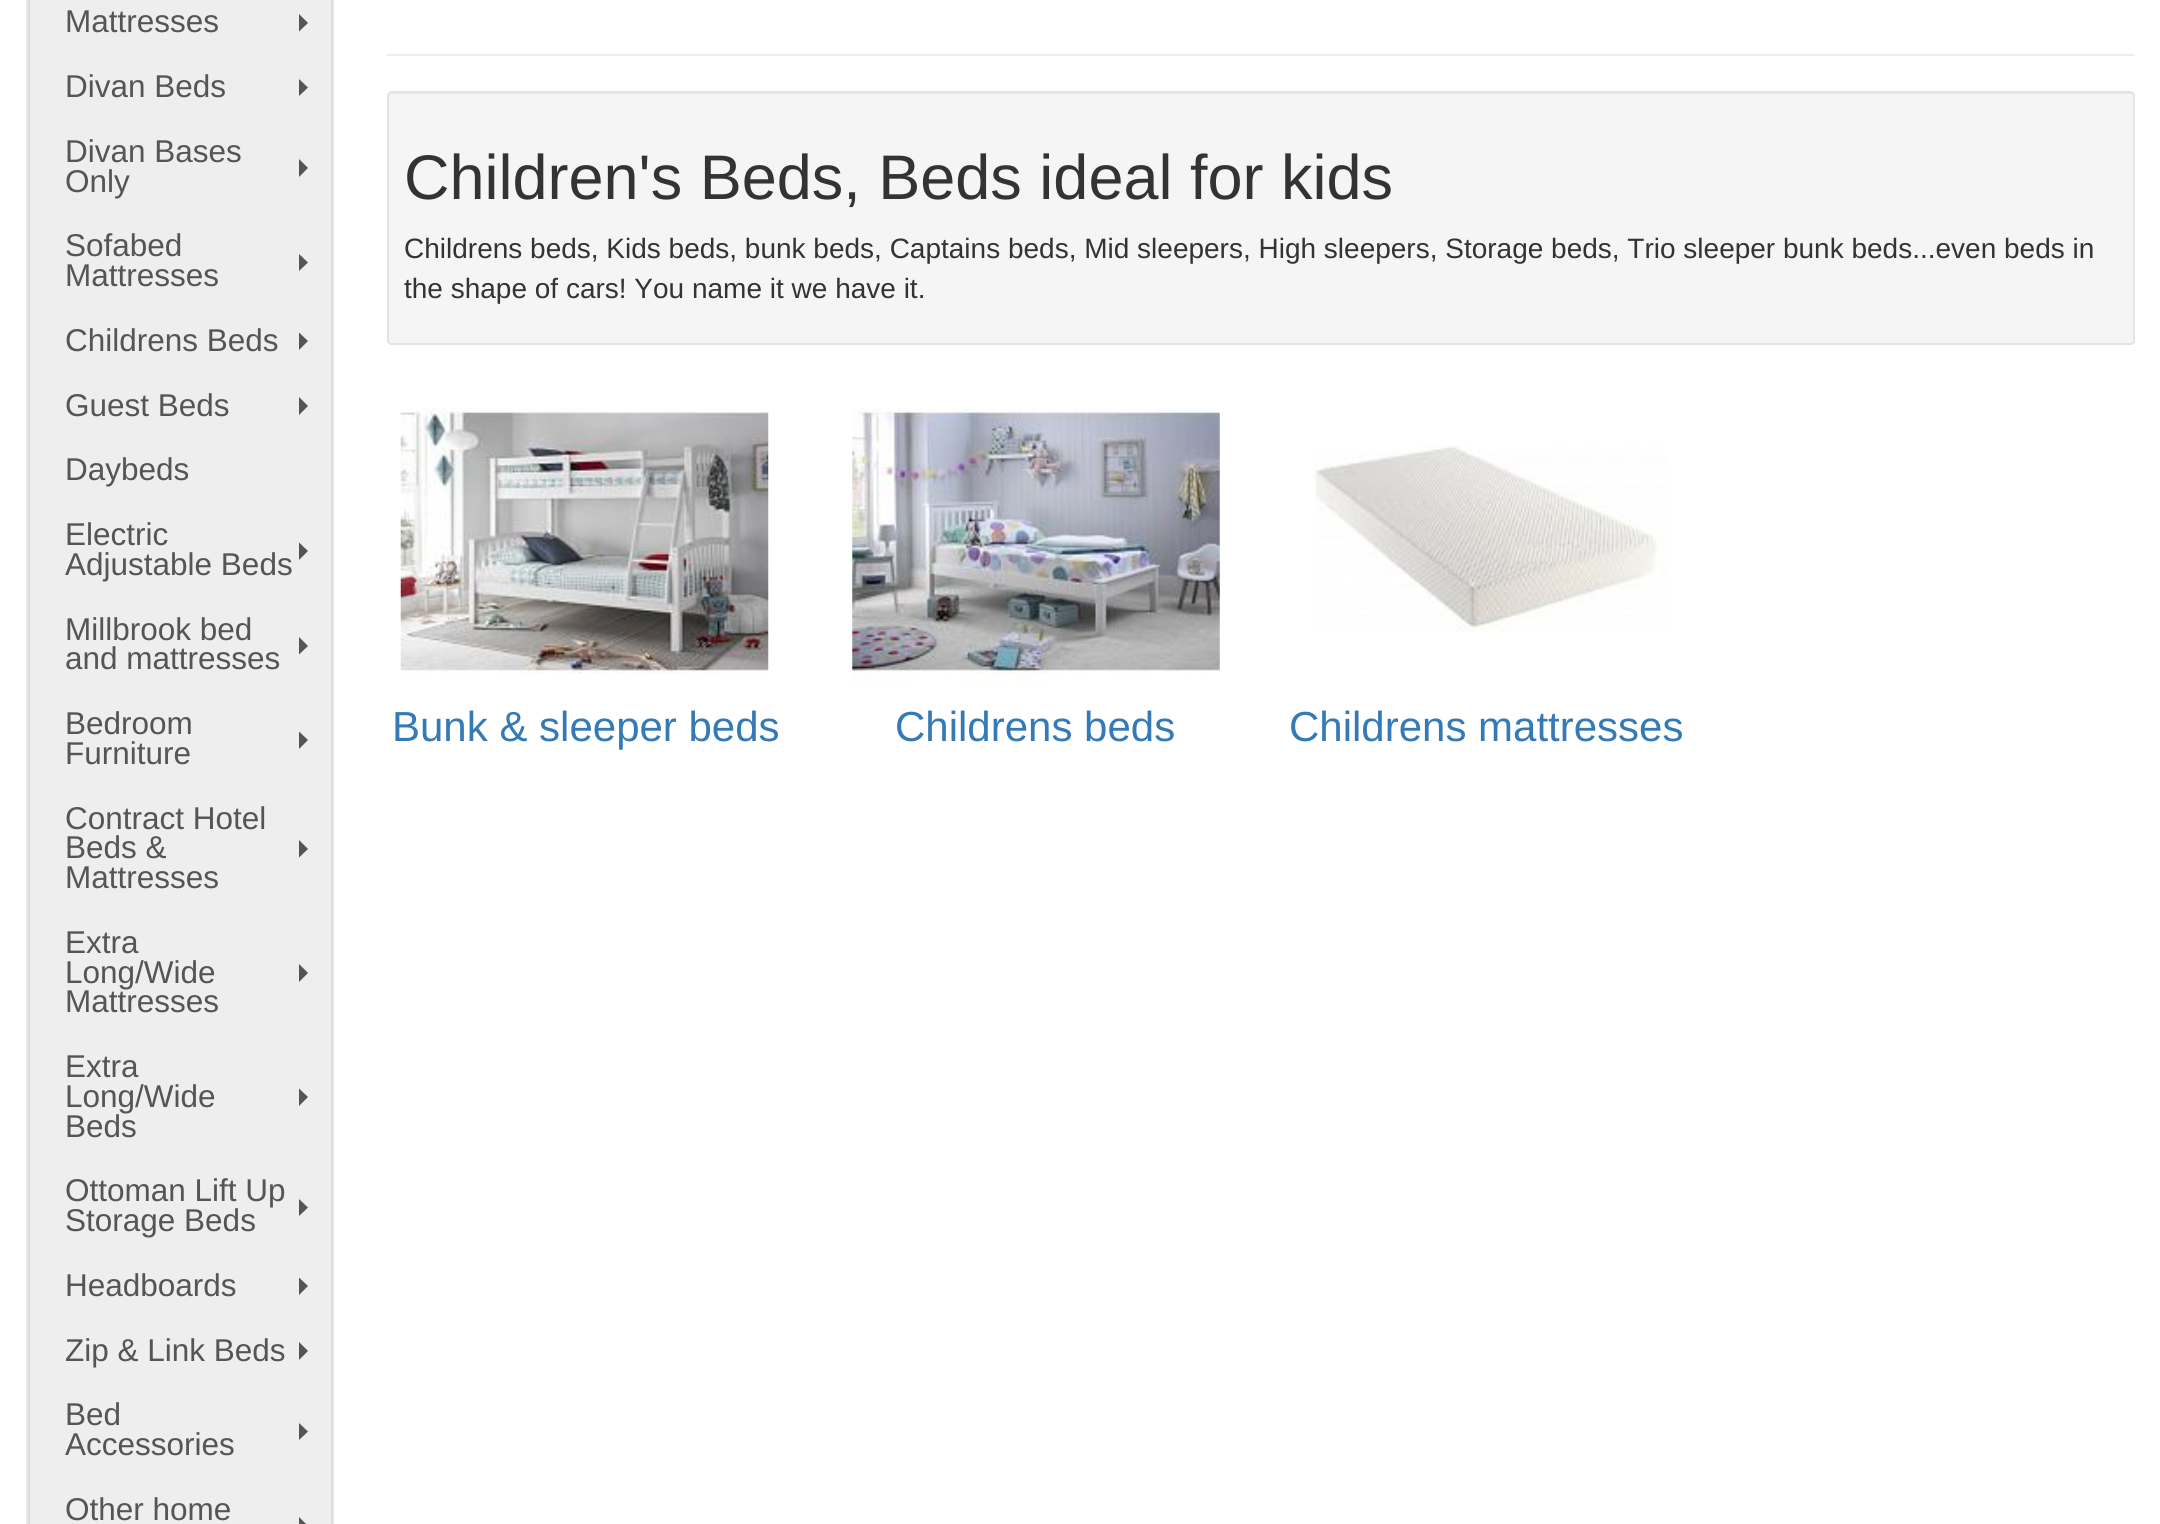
#include <cairo.h>
#include <math.h>
#include <stddef.h>


static void set_color(cairo_t *cr, unsigned color) {
    cairo_set_source_rgb(cr, (color >> 16) / 255.0, (color >> 8 & 255) / 255.0, (color & 255) / 255.0);
}

static void draw_text(cairo_t *cr, double x, double y, const char *s, const char *family, double size, int italic, int bold, unsigned color) {
    cairo_select_font_face(cr, family, italic ? CAIRO_FONT_SLANT_ITALIC : CAIRO_FONT_SLANT_NORMAL,
        bold ? CAIRO_FONT_WEIGHT_BOLD : CAIRO_FONT_WEIGHT_NORMAL);
    cairo_set_font_size(cr, size);
    set_color(cr, color);
    cairo_move_to(cr, x, y);
    cairo_show_text(cr, s);
}

static void fill_rect(cairo_t *cr, double x, double y, double w, double h, unsigned color) {
    set_color(cr, color);
    cairo_rectangle(cr, x, y, w, h);
    cairo_fill(cr);
}

static void rounded_rect(cairo_t *cr, double x, double y, double w, double h, double r) {
    cairo_new_sub_path(cr);
    cairo_arc(cr, x + w - r, y + h - r, r, 0, M_PI / 2);
    cairo_arc(cr, x + r, y + h - r, r, M_PI / 2, M_PI);
    cairo_arc(cr, x + r, y + r, r, M_PI, 1.5 * M_PI);
    cairo_arc(cr, x + w - r, y + r, r, 1.5 * M_PI, 2 * M_PI);
    cairo_close_path(cr);
}

static void draw_image(cairo_t *cr, const char *path, double x, double y, double w, double h) {
    cairo_surface_t *image = cairo_image_surface_create_from_png(path);
    cairo_save(cr);
    cairo_set_source_surface(cr, image, x, y);
    cairo_rectangle(cr, x, y, w, h);
    cairo_fill(cr);
    cairo_restore(cr);
    cairo_surface_destroy(image);
}

int main(void) {
    cairo_surface_t *surface = cairo_image_surface_create(CAIRO_FORMAT_RGB24, 2160, 1524);
    cairo_t *cr = cairo_create(surface);
    cairo_font_options_t *options = cairo_font_options_create();
    cairo_font_options_set_hint_metrics(options, CAIRO_HINT_METRICS_OFF);
    cairo_font_options_set_hint_style(options, CAIRO_HINT_STYLE_NONE);
    cairo_set_font_options(cr, options);
    cairo_set_miter_limit(cr, 4);
    set_color(cr, 0xFFFFFF);
    cairo_paint(cr);
    cairo_rectangle(cr, 27, -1, 306, 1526);
    set_color(cr, 0xE7E7E7);
    cairo_stroke(cr);
    cairo_rectangle(cr, 29, -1, 303, 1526);
    set_color(cr, 0xDDDDDD);
    cairo_stroke(cr);
    fill_rect(cr, 30, 0, 301, 1524, 0xEEEEEE);
    draw_text(cr, 65, 32, "Mattresses", "Liberation Sans", 31.5, 0, 0, 0x555555);
    cairo_new_path(cr);
    cairo_move_to(cr, 299, 31.5);
    cairo_line_to(cr, 299, 14);
    cairo_line_to(cr, 308, 23);
    cairo_close_path(cr);
    cairo_fill(cr);
    draw_text(cr, 65, 97, "Divan Beds", "Liberation Sans", 31.5, 0, 0, 0x555555);
    cairo_new_path(cr);
    cairo_move_to(cr, 299, 96);
    cairo_line_to(cr, 299, 79);
    cairo_line_to(cr, 308, 87.5);
    cairo_close_path(cr);
    cairo_fill(cr);
    draw_text(cr, 65, 162, "Divan Bases", "Liberation Sans", 31.5, 0, 0, 0x555555);
    draw_text(cr, 65, 192, "Only", "Liberation Sans", 31.5, 0, 0, 0x555555);
    cairo_new_path(cr);
    cairo_move_to(cr, 299, 177);
    cairo_line_to(cr, 299, 159);
    cairo_line_to(cr, 308, 168);
    cairo_close_path(cr);
    cairo_fill(cr);
    draw_text(cr, 65, 256, "Sofabed", "Liberation Sans", 31.5, 0, 0, 0x555555);
    draw_text(cr, 65, 286, "Mattresses", "Liberation Sans", 31.5, 0, 0, 0x555555);
    cairo_new_path(cr);
    cairo_move_to(cr, 299, 271);
    cairo_line_to(cr, 299, 254);
    cairo_line_to(cr, 308, 262.5);
    cairo_close_path(cr);
    cairo_fill(cr);
    draw_text(cr, 65, 351, "Childrens Beds", "Liberation Sans", 31.5, 0, 0, 0x555555);
    cairo_new_path(cr);
    cairo_move_to(cr, 299, 350);
    cairo_line_to(cr, 299, 332.5);
    cairo_line_to(cr, 308, 341);
    cairo_close_path(cr);
    cairo_fill(cr);
    draw_text(cr, 65, 416, "Guest Beds", "Liberation Sans", 31.5, 0, 0, 0x555555);
    cairo_new_path(cr);
    cairo_move_to(cr, 299, 415);
    cairo_line_to(cr, 299, 397);
    cairo_line_to(cr, 308, 406);
    cairo_close_path(cr);
    cairo_fill(cr);
    draw_text(cr, 65, 480, "Daybeds", "Liberation Sans", 31.5, 0, 0, 0x555555);
    draw_text(cr, 65, 545, "Electric", "Liberation Sans", 31.5, 0, 0, 0x555555);
    draw_text(cr, 65, 575, "Adjustable Beds", "Liberation Sans", 31.5, 0, 0, 0x555555);
    cairo_new_path(cr);
    cairo_move_to(cr, 299, 560);
    cairo_line_to(cr, 299, 542.5);
    cairo_line_to(cr, 308, 551);
    cairo_close_path(cr);
    cairo_fill(cr);
    draw_text(cr, 65, 640, "Millbrook bed", "Liberation Sans", 31.5, 0, 0, 0x555555);
    draw_text(cr, 65, 669, "and mattresses", "Liberation Sans", 31.5, 0, 0, 0x555555);
    cairo_new_path(cr);
    cairo_move_to(cr, 299, 654.5);
    cairo_line_to(cr, 299, 637);
    cairo_line_to(cr, 308, 646);
    cairo_close_path(cr);
    cairo_fill(cr);
    draw_text(cr, 65, 734, "Bedroom", "Liberation Sans", 31.5, 0, 0, 0x555555);
    draw_text(cr, 65, 764, "Furniture", "Liberation Sans", 31.5, 0, 0, 0x555555);
    cairo_new_path(cr);
    cairo_move_to(cr, 299, 749);
    cairo_line_to(cr, 299, 731.5);
    cairo_line_to(cr, 308, 740);
    cairo_close_path(cr);
    cairo_fill(cr);
    draw_text(cr, 65, 829, "Contract Hotel", "Liberation Sans", 31.5, 0, 0, 0x555555);
    draw_text(cr, 65, 858, "Beds &", "Liberation Sans", 31.5, 0, 0, 0x555555);
    cairo_new_path(cr);
    cairo_move_to(cr, 299, 857.5);
    cairo_line_to(cr, 299, 840);
    cairo_line_to(cr, 308, 849);
    cairo_close_path(cr);
    cairo_fill(cr);
    draw_text(cr, 65, 888, "Mattresses", "Liberation Sans", 31.5, 0, 0, 0x555555);
    draw_text(cr, 65, 953, "Extra", "Liberation Sans", 31.5, 0, 0, 0x555555);
    draw_text(cr, 65, 983, "Long/Wide", "Liberation Sans", 31.5, 0, 0, 0x555555);
    cairo_new_path(cr);
    cairo_move_to(cr, 299, 982);
    cairo_line_to(cr, 299, 964);
    cairo_line_to(cr, 308, 973);
    cairo_close_path(cr);
    cairo_fill(cr);
    draw_text(cr, 65, 1012, "Mattresses", "Liberation Sans", 31.5, 0, 0, 0x555555);
    draw_text(cr, 65, 1077, "Extra", "Liberation Sans", 31.5, 0, 0, 0x555555);
    draw_text(cr, 65, 1107, "Long/Wide", "Liberation Sans", 31.5, 0, 0, 0x555555);
    cairo_new_path(cr);
    cairo_move_to(cr, 299, 1106);
    cairo_line_to(cr, 299, 1088.5);
    cairo_line_to(cr, 308, 1097);
    cairo_close_path(cr);
    cairo_fill(cr);
    draw_text(cr, 65, 1137, "Beds", "Liberation Sans", 31.5, 0, 0, 0x555555);
    draw_text(cr, 65, 1201, "Ottoman Lift Up", "Liberation Sans", 31.5, 0, 0, 0x555555);
    cairo_new_path(cr);
    cairo_move_to(cr, 299, 1216);
    cairo_line_to(cr, 299, 1199);
    cairo_line_to(cr, 308, 1207.5);
    cairo_close_path(cr);
    cairo_fill(cr);
    draw_text(cr, 65, 1231, "Storage Beds", "Liberation Sans", 31.5, 0, 0, 0x555555);
    draw_text(cr, 65, 1296, "Headboards", "Liberation Sans", 31.5, 0, 0, 0x555555);
    cairo_new_path(cr);
    cairo_move_to(cr, 299, 1295);
    cairo_line_to(cr, 299, 1277.5);
    cairo_line_to(cr, 308, 1286);
    cairo_close_path(cr);
    cairo_fill(cr);
    draw_text(cr, 65, 1361, "Zip & Link Beds", "Liberation Sans", 31.5, 0, 0, 0x555555);
    cairo_new_path(cr);
    cairo_move_to(cr, 299, 1360);
    cairo_line_to(cr, 299, 1342);
    cairo_line_to(cr, 308, 1351);
    cairo_close_path(cr);
    cairo_fill(cr);
    draw_text(cr, 65, 1425, "Bed", "Liberation Sans", 31.5, 0, 0, 0x555555);
    draw_text(cr, 65, 1455, "Accessories", "Liberation Sans", 31.5, 0, 0, 0x555555);
    cairo_new_path(cr);
    cairo_move_to(cr, 299, 1440);
    cairo_line_to(cr, 299, 1423);
    cairo_line_to(cr, 308, 1431.5);
    cairo_close_path(cr);
    cairo_fill(cr);
    draw_text(cr, 65, 1520, "Other home", "Liberation Sans", 31.5, 0, 0, 0x555555);
    cairo_new_path(cr);
    cairo_move_to(cr, 299, 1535);
    cairo_line_to(cr, 299, 1517);
    cairo_line_to(cr, 308, 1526);
    cairo_close_path(cr);
    cairo_fill(cr);
    fill_rect(cr, 387, 54, 1748, 2, 0xEEEEEE);
    set_color(cr, 0xF5F5F5);
    rounded_rect(cr, 387, 91, 1748, 254, 5);
    cairo_fill(cr);
    set_color(cr, 0xE9E9E9);
    cairo_new_path(cr);
    cairo_move_to(cr, 392, 94);
    cairo_line_to(cr, 2130, 94);
    cairo_curve_to(cr, 2132, 94, 2133, 96, 2133, 98);
    cairo_line_to(cr, 2133, 97);
    cairo_curve_to(cr, 2133, 95, 2131, 93, 2129, 93);
    cairo_line_to(cr, 393, 93);
    cairo_curve_to(cr, 392, 93, 390, 94, 390, 95);
    cairo_close_path(cr);
    cairo_fill(cr);
    rounded_rect(cr, 388, 92, 1746, 252, 4);
    set_color(cr, 0xE3E3E3);
    cairo_stroke(cr);
    draw_text(cr, 404, 199, "Children's Beds, Beds ideal for kids", "Liberation Sans", 63, 0, 0, 0x333333);
    draw_text(cr, 404, 258, "Childrens beds, Kids beds, bunk beds, Captains beds, Mid sleepers, High sleepers, Storage beds, Trio sleeper bunk beds...even beds in", "Liberation Sans", 28, 0, 0, 0x333333);
    draw_text(cr, 404, 298, "the shape of cars! You name it we have it.", "Liberation Sans", 28, 0, 0, 0x333333);
    draw_image(cr, "assets/img1.png", 400, 408, 369, 266);
    draw_text(cr, 392, 741, "Bunk & sleeper beds", "Liberation Sans", 42, 0, 0, 0x337AB7);
    draw_image(cr, "assets/img2.png", 852, 408, 368, 279);
    draw_text(cr, 895, 741, "Childrens beds", "Liberation Sans", 42, 0, 0, 0x337AB7);
    draw_image(cr, "assets/img3.png", 1313, 445, 353, 187);
    draw_text(cr, 1289, 741, "Childrens mattresses", "Liberation Sans", 42, 0, 0, 0x337AB7);
    cairo_surface_write_to_png(surface, "output.png");
    cairo_font_options_destroy(options);
    cairo_destroy(cr);
    cairo_surface_destroy(surface);
    return 0;
}
